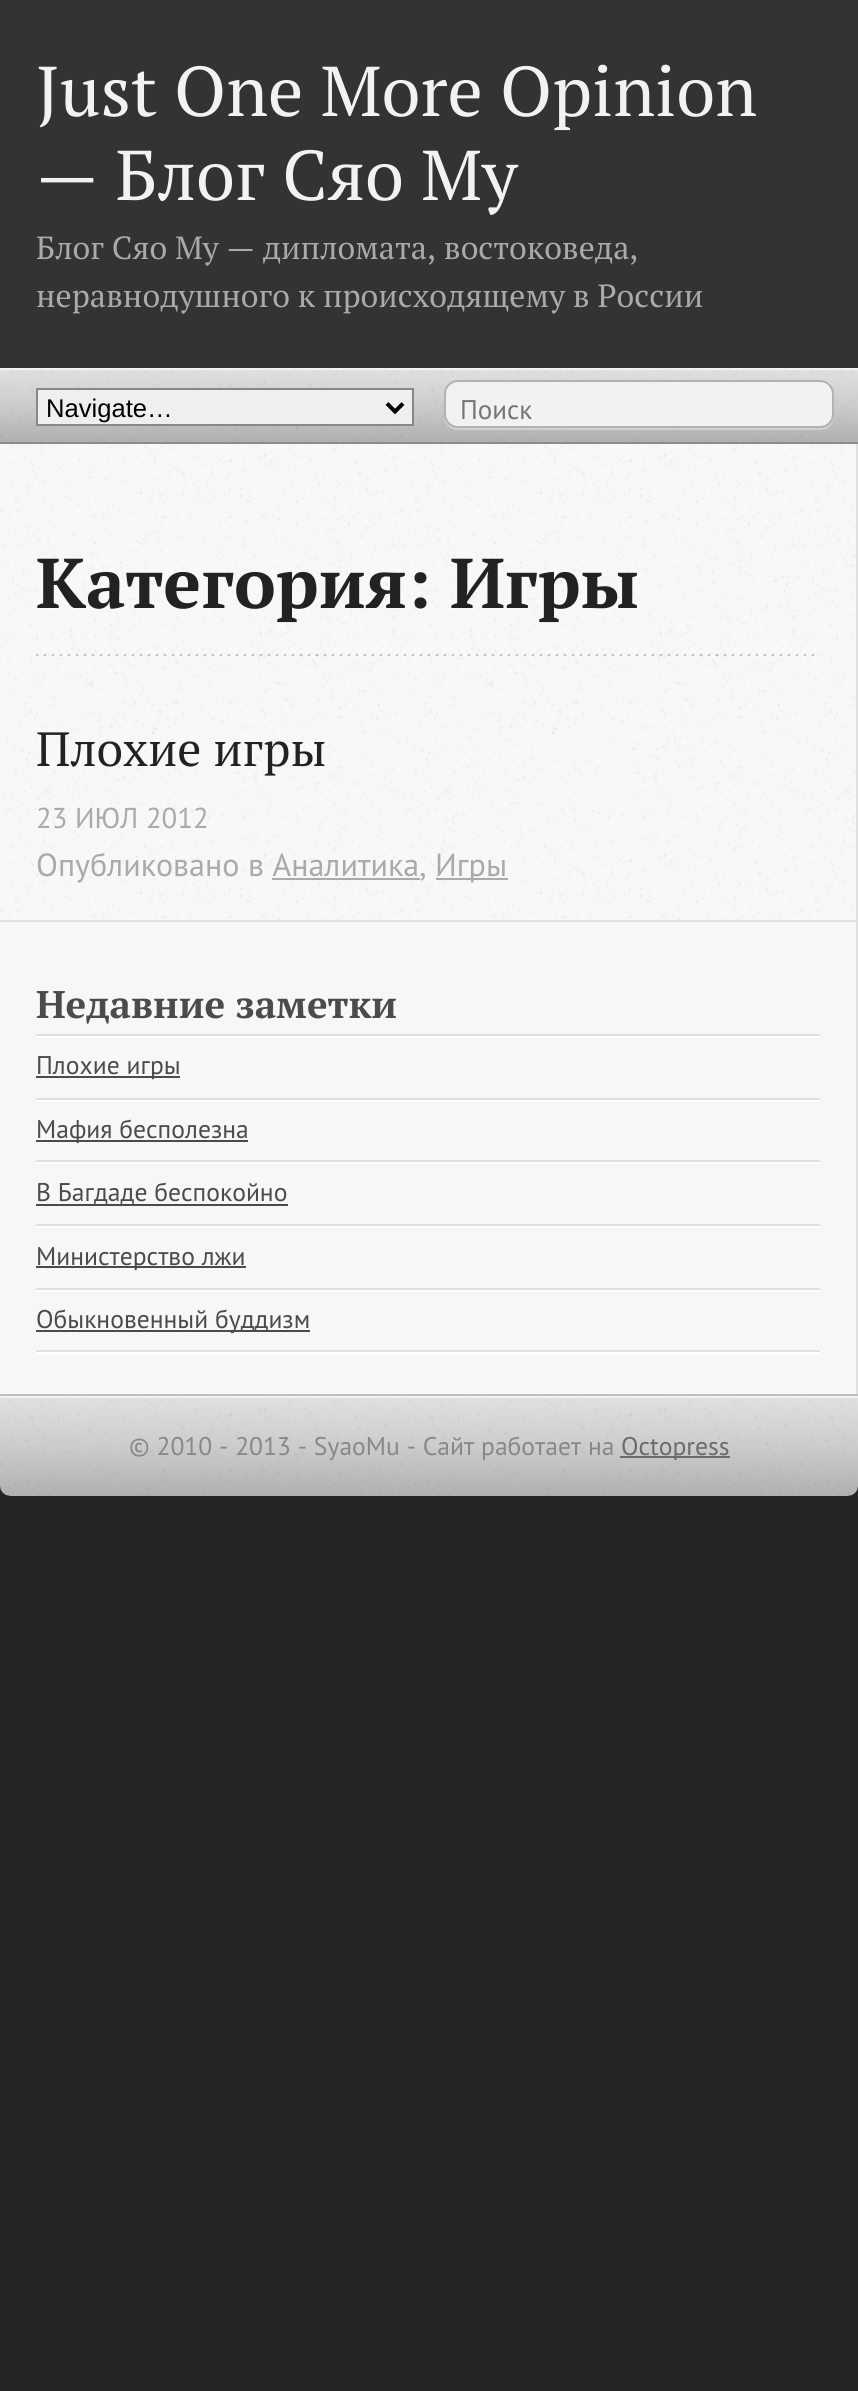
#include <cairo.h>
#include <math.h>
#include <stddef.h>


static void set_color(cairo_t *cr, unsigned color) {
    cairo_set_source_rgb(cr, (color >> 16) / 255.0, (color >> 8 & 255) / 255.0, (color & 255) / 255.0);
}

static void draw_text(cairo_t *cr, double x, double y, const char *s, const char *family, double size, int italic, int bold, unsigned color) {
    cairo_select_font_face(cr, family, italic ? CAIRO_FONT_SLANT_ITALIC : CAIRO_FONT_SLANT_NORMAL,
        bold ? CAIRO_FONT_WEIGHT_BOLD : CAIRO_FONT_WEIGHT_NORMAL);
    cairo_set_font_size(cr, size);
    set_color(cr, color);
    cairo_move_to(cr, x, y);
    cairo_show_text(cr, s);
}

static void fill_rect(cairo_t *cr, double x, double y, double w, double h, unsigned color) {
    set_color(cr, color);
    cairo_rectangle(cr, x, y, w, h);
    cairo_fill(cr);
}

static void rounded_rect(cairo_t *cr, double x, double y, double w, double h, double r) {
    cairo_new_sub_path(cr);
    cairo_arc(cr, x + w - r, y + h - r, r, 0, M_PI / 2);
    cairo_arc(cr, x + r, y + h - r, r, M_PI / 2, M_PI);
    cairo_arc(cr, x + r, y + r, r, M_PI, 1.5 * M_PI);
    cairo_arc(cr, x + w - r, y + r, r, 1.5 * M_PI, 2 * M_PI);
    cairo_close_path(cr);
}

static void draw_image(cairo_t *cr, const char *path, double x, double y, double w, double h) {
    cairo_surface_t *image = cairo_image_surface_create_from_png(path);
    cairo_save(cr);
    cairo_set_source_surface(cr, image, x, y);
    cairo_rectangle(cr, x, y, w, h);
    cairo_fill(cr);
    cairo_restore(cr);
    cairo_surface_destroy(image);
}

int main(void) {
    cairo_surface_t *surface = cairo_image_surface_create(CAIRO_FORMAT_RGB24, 858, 2391);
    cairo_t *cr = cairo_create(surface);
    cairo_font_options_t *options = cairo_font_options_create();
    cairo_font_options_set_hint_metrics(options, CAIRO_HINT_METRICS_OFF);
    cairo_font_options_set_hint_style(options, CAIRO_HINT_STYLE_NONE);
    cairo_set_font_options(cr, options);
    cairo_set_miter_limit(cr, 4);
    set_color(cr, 0x252525);
    cairo_paint(cr);
    fill_rect(cr, 0, 0, 858, 368, 0x333333);
    draw_text(cr, 36, 116, "Just One More Opinion", "PT Serif", 70.4, 0, 0, 0xF2F2F2);
    draw_text(cr, 36, 200, "— Блог Сяо Му", "PT Serif", 70.4, 0, 0, 0xF2F2F2);
    draw_text(cr, 36, 259, "Блог Сяо Му — дипломата, востоковеда,", "PT Serif", 32, 0, 0, 0xAAAAAA);
    draw_text(cr, 36, 307, "неравнодушного к происходящему в России", "PT Serif", 32, 0, 0, 0xAAAAAA);
    draw_image(cr, "assets/img1.png", 0, 370, 858, 72);
    fill_rect(cr, 0, 368, 858, 2, 0xF2F2F2);
    fill_rect(cr, 0, 442, 858, 2, 0x8C8C8C);
    set_color(cr, 0xEFEFEF);
    cairo_rectangle(cr, 37, 389, 376, 36);
    cairo_fill_preserve(cr);
    set_color(cr, 0x888888);
    cairo_stroke(cr);
    cairo_new_path(cr);
    cairo_move_to(cr, 387, 403.5);
    cairo_line_to(cr, 395, 411.5);
    cairo_line_to(cr, 403, 403.5);
    set_color(cr, 0x000000);
    cairo_set_line_width(cr, 4);
    cairo_stroke(cr);
    draw_text(cr, 46, 417, "Navigate…", "Liberation Sans", 25.6, 0, 0, 0x000000);
    set_color(cr, 0xD1D1D1);
    cairo_new_path(cr);
    cairo_move_to(cr, 444, 414);
    cairo_line_to(cr, 444, 416);
    cairo_curve_to(cr, 444, 424, 450, 430, 458, 430);
    cairo_line_to(cr, 820, 430);
    cairo_curve_to(cr, 828, 430, 834, 424, 834, 416);
    cairo_line_to(cr, 834, 414);
    cairo_curve_to(cr, 834, 422, 828, 428, 820, 428);
    cairo_line_to(cr, 458, 428);
    cairo_curve_to(cr, 450, 428, 444, 422, 444, 414);
    cairo_close_path(cr);
    cairo_fill(cr);
    set_color(cr, 0xF2F2F2);
    rounded_rect(cr, 445, 381, 388, 46, 13);
    cairo_fill_preserve(cr);
    set_color(cr, 0xB3B3B3);
    cairo_set_line_width(cr, 2);
    cairo_stroke(cr);
    draw_text(cr, 460, 419, "Поиск", "PT Sans", 27, 0, 0, 0x757575);
    fill_rect(cr, 0, 1394, 858, 2, 0xBFBFBF);
    fill_rect(cr, 0, 444, 856, 476, 0xF8F8F8);
    draw_image(cr, "assets/img2.png", 0, 444, 856, 476);
    fill_rect(cr, 856, 444, 2, 950, 0xE0E0E0);
    draw_image(cr, "assets/img3.png", 36, 654, 784, 2);
    draw_text(cr, 36, 608, "Категория: Игры", "PT Serif", 70.4, 0, 1, 0x222222);
    draw_text(cr, 36, 766, "Плохие игры", "PT Serif", 48, 0, 0, 0x222222);
    draw_text(cr, 36, 828, "23 ИЮЛ 2012", "PT Sans", 28.75, 0, 0, 0xAAAAAA);
    draw_text(cr, 36, 876, "Опубликовано в Аналитика,", "PT Sans", 32, 0, 0, 0xAAAAAA);
    fill_rect(cr, 272, 878, 148, 2, 0xAAAAAA);
    fill_rect(cr, 436, 878, 72, 2, 0xAAAAAA);
    draw_text(cr, 435, 876, "Игры", "PT Sans", 32, 0, 0, 0xAAAAAA);
    fill_rect(cr, 0, 922, 856, 472, 0xF7F7F7);
    fill_rect(cr, 0, 920, 856, 2, 0xE0E0E0);
    fill_rect(cr, 36, 1036, 784, 2, 0xFFFFFF);
    fill_rect(cr, 36, 1034, 784, 2, 0xE0E0E0);
    draw_text(cr, 36, 1018, "Недавние заметки", "PT Serif", 38.5, 0, 1, 0x4B4B4B);
    fill_rect(cr, 36, 1100, 784, 2, 0xFFFFFF);
    fill_rect(cr, 36, 1098, 784, 2, 0xE0E0E0);
    fill_rect(cr, 36, 1076, 144, 2, 0x4B4B4B);
    draw_text(cr, 36, 1074, "Плохие игры", "PT Sans", 25.6, 0, 0, 0x4B4B4B);
    fill_rect(cr, 36, 1162, 784, 2, 0xFFFFFF);
    fill_rect(cr, 36, 1160, 784, 2, 0xE0E0E0);
    fill_rect(cr, 36, 1140, 212, 2, 0x4B4B4B);
    draw_text(cr, 36, 1138, "Мафия бесполезна", "PT Sans", 25.6, 0, 0, 0x4B4B4B);
    fill_rect(cr, 36, 1226, 784, 2, 0xFFFFFF);
    fill_rect(cr, 36, 1224, 784, 2, 0xE0E0E0);
    fill_rect(cr, 36, 1204, 252, 2, 0x4B4B4B);
    draw_text(cr, 36, 1201, "В Багдаде беспокойно", "PT Sans", 25.6, 0, 0, 0x4B4B4B);
    fill_rect(cr, 36, 1290, 784, 2, 0xFFFFFF);
    fill_rect(cr, 36, 1288, 784, 2, 0xE0E0E0);
    fill_rect(cr, 36, 1266, 210, 2, 0x4B4B4B);
    draw_text(cr, 36, 1265, "Министерство лжи", "PT Sans", 25.6, 0, 0, 0x4B4B4B);
    fill_rect(cr, 36, 1352, 784, 2, 0xFFFFFF);
    fill_rect(cr, 36, 1350, 784, 2, 0xE0E0E0);
    fill_rect(cr, 36, 1330, 274, 2, 0x4B4B4B);
    draw_text(cr, 36, 1328, "Обыкновенный буддизм", "PT Sans", 25.6, 0, 0, 0x4B4B4B);
    draw_image(cr, "assets/img4.png", 0, 1398, 858, 98);
    fill_rect(cr, 0, 1396, 858, 2, 0xF2F2F2);
    draw_text(cr, 129, 1455, "© 2010 - 2013 - SyaoMu - Сайт работает на", "PT Sans", 25.6, 0, 0, 0x888888);
    fill_rect(cr, 620, 1456, 110, 2, 0x6B6B6B);
    draw_text(cr, 621, 1455, "Octopress", "PT Sans", 25.6, 0, 0, 0x6B6B6B);
    cairo_surface_write_to_png(surface, "output.png");
    cairo_font_options_destroy(options);
    cairo_destroy(cr);
    cairo_surface_destroy(surface);
    return 0;
}
